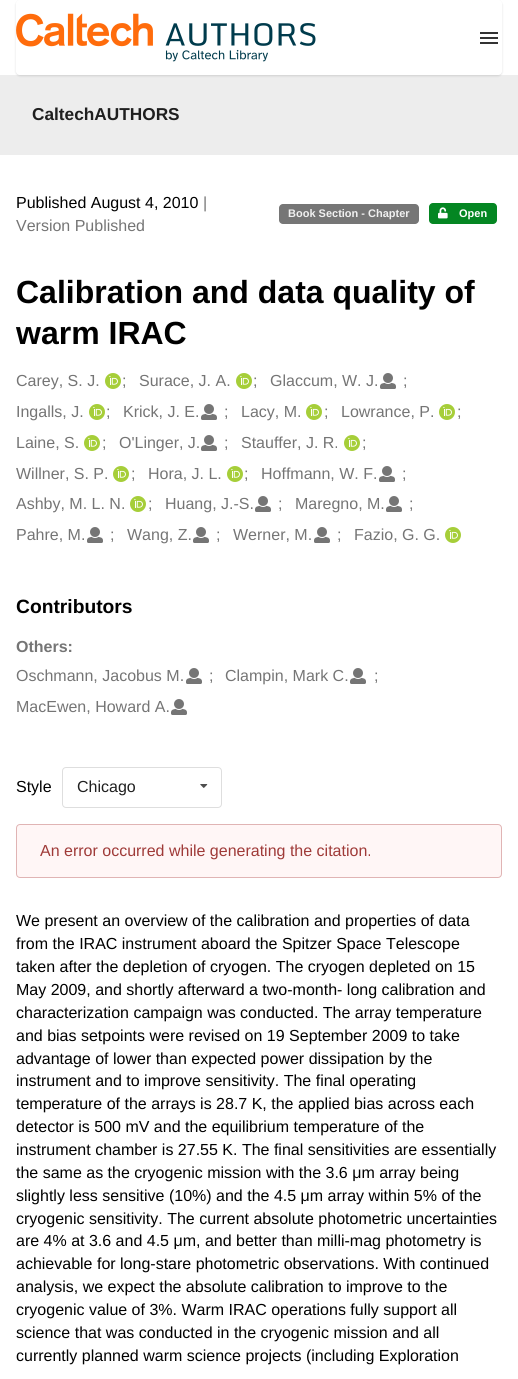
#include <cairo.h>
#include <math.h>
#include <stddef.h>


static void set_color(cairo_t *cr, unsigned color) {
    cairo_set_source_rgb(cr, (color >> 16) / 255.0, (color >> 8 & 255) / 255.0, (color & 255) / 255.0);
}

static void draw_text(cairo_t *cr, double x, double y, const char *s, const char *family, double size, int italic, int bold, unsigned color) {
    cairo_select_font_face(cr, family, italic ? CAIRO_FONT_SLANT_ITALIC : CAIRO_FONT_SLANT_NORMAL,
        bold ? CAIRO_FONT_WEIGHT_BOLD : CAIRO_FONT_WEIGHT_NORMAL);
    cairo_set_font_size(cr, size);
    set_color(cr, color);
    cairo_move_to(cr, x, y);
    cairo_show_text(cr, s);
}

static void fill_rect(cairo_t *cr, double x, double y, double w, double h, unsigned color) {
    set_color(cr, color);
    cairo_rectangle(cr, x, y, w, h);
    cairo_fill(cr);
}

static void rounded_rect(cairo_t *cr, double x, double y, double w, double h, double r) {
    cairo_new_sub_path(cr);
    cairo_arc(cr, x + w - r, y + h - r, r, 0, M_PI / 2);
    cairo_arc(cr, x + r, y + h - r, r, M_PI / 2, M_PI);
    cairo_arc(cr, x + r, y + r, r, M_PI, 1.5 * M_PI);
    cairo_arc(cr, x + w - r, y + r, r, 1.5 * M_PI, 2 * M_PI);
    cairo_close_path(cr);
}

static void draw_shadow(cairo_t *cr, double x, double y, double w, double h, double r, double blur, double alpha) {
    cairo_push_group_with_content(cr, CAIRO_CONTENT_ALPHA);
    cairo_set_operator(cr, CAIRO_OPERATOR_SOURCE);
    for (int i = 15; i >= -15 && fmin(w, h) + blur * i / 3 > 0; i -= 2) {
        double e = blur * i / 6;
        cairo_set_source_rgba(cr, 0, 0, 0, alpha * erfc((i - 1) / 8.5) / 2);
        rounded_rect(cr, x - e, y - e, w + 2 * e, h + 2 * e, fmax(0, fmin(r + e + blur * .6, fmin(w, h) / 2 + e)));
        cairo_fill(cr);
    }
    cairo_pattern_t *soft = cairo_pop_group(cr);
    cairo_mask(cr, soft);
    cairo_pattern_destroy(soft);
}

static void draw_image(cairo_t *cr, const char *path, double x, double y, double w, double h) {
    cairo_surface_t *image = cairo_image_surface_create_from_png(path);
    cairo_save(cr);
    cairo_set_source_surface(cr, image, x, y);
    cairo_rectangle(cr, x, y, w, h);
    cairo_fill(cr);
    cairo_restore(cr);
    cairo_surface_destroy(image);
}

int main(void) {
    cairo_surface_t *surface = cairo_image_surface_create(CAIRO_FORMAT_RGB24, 518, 1379);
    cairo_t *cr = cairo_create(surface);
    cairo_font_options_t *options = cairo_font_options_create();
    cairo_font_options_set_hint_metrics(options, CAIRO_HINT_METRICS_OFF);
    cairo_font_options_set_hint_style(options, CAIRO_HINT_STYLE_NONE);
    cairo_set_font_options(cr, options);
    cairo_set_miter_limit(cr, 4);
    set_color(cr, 0xFFFFFF);
    cairo_paint(cr);
    fill_rect(cr, 0, 75, 518, 80, 0xEDEDED);
    cairo_save(cr);
    cairo_set_fill_rule(cr, CAIRO_FILL_RULE_EVEN_ODD);
    cairo_new_path(cr);
    cairo_move_to(cr, 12, 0);
    cairo_line_to(cr, 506, 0);
    cairo_line_to(cr, 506, 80);
    cairo_line_to(cr, 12, 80);
    cairo_close_path(cr);
    cairo_move_to(cr, 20, 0);
    cairo_line_to(cr, 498, 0);
    cairo_curve_to(cr, 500, 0, 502, 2, 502, 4);
    cairo_line_to(cr, 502, 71);
    cairo_curve_to(cr, 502, 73, 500, 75, 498, 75);
    cairo_line_to(cr, 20, 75);
    cairo_curve_to(cr, 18, 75, 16, 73, 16, 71);
    cairo_line_to(cr, 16, 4);
    cairo_curve_to(cr, 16, 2, 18, 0, 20, 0);
    cairo_close_path(cr);
    cairo_clip(cr);
    set_color(cr, 0x222426);
    draw_shadow(cr, 16, 1, 486, 75, 4, 1, 0.15);
    cairo_restore(cr);
    draw_image(cr, "assets/img1.png", 16, 13, 300, 49);
    fill_rect(cr, 480, 37, 18, 2, 0x333333);
    fill_rect(cr, 480, 32, 18, 2, 0x333333);
    fill_rect(cr, 480, 42, 18, 2, 0x333333);
    draw_text(cr, 32, 120, "CaltechAUTHORS", "Liberation Sans", 17.25, 0, 1, 0x1F1F1F);
    draw_text(cr, 16, 208, "Published August 4, 2010", "Liberation Sans", 16, 0, 0, 0x000000);
    draw_text(cr, 203, 208, "|", "Liberation Sans", 16, 0, 0, 0x757575);
    draw_text(cr, 16, 231, "Version Published", "Liberation Sans", 16, 0, 0, 0x757575);
    set_color(cr, 0x767676);
    rounded_rect(cr, 279, 204, 140, 20, 4);
    cairo_fill(cr);
    draw_text(cr, 288, 217, "Book Section - Chapter", "Liberation Sans", 11, 0, 1, 0xF1F1F1);
    set_color(cr, 0x048622);
    rounded_rect(cr, 429, 203, 68, 21, 4);
    cairo_fill(cr);
    draw_image(cr, "assets/img2.png", 438, 207, 10, 12);
    draw_text(cr, 459, 217, "Open", "Liberation Sans", 11, 0, 1, 0xFFFFFF);
    draw_text(cr, 16, 303, "Calibration and data quality of", "Liberation Sans", 32, 0, 1, 0x000000);
    draw_text(cr, 16, 344, "warm IRAC", "Liberation Sans", 32, 0, 1, 0x000000);
    draw_text(cr, 16, 386, "Carey, S. J.", "Liberation Sans", 16, 0, 0, 0x757575);
    draw_image(cr, "assets/img3.png", 105, 373, 16, 16);
    draw_text(cr, 122, 386, ";", "Liberation Sans", 16, 0, 0, 0x757575);
    draw_text(cr, 139, 386, "Surace, J. A.", "Liberation Sans", 16, 0, 0, 0x757575);
    draw_image(cr, "assets/img3.png", 236, 373, 16, 16);
    draw_text(cr, 253, 386, ";", "Liberation Sans", 16, 0, 0, 0x757575);
    draw_text(cr, 270, 386, "Glaccum, W. J.", "Liberation Sans", 16, 0, 0, 0x757575);
    draw_image(cr, "assets/img4.png", 380, 373, 16, 16);
    draw_text(cr, 403, 386, ";", "Liberation Sans", 16, 0, 0, 0x757575);
    draw_text(cr, 16, 417, "Ingalls, J.", "Liberation Sans", 16, 0, 0, 0x757575);
    draw_image(cr, "assets/img3.png", 89, 404, 16, 16);
    draw_text(cr, 106, 417, ";", "Liberation Sans", 16, 0, 0, 0x757575);
    draw_text(cr, 123, 417, "Krick, J. E.", "Liberation Sans", 16, 0, 0, 0x757575);
    draw_image(cr, "assets/img4.png", 201, 404, 16, 16);
    draw_text(cr, 224, 417, ";", "Liberation Sans", 16, 0, 0, 0x757575);
    draw_text(cr, 241, 417, "Lacy, M.", "Liberation Sans", 16, 0, 0, 0x757575);
    draw_image(cr, "assets/img3.png", 306, 404, 16, 16);
    draw_text(cr, 324, 417, ";", "Liberation Sans", 16, 0, 0, 0x757575);
    draw_text(cr, 341, 417, "Lowrance, P.", "Liberation Sans", 16, 0, 0, 0x757575);
    draw_image(cr, "assets/img3.png", 439, 404, 16, 16);
    draw_text(cr, 457, 417, ";", "Liberation Sans", 16, 0, 0, 0x757575);
    draw_text(cr, 16, 448, "Laine, S.", "Liberation Sans", 16, 0, 0, 0x757575);
    draw_image(cr, "assets/img3.png", 84, 435, 16, 16);
    draw_text(cr, 102, 448, ";", "Liberation Sans", 16, 0, 0, 0x757575);
    draw_text(cr, 119, 448, "O'Linger, J.", "Liberation Sans", 16, 0, 0, 0x757575);
    draw_image(cr, "assets/img4.png", 201, 435, 16, 16);
    draw_text(cr, 224, 448, ";", "Liberation Sans", 16, 0, 0, 0x757575);
    draw_text(cr, 241, 448, "Stauffer, J. R.", "Liberation Sans", 16, 0, 0, 0x757575);
    draw_image(cr, "assets/img3.png", 344, 435, 16, 16);
    draw_text(cr, 362, 448, ";", "Liberation Sans", 16, 0, 0, 0x757575);
    draw_text(cr, 16, 479, "Willner, S. P.", "Liberation Sans", 16, 0, 0, 0x757575);
    draw_image(cr, "assets/img3.png", 113, 466, 16, 16);
    draw_text(cr, 131, 479, ";", "Liberation Sans", 16, 0, 0, 0x757575);
    draw_text(cr, 148, 479, "Hora, J. L.", "Liberation Sans", 16, 0, 0, 0x757575);
    draw_image(cr, "assets/img3.png", 227, 466, 16, 16);
    draw_text(cr, 244, 479, ";", "Liberation Sans", 16, 0, 0, 0x757575);
    draw_text(cr, 261, 479, "Hoffmann, W. F.", "Liberation Sans", 16, 0, 0, 0x757575);
    draw_image(cr, "assets/img4.png", 379, 466, 16, 16);
    draw_text(cr, 402, 479, ";", "Liberation Sans", 16, 0, 0, 0x757575);
    draw_text(cr, 16, 509, "Ashby, M. L. N.", "Liberation Sans", 16, 0, 0, 0x757575);
    draw_image(cr, "assets/img3.png", 130, 496, 16, 16);
    draw_text(cr, 148, 509, ";", "Liberation Sans", 16, 0, 0, 0x757575);
    draw_text(cr, 165, 509, "Huang, J.-S.", "Liberation Sans", 16, 0, 0, 0x757575);
    draw_image(cr, "assets/img4.png", 255, 496, 16, 16);
    draw_text(cr, 278, 509, ";", "Liberation Sans", 16, 0, 0, 0x757575);
    draw_text(cr, 295, 509, "Maregno, M.", "Liberation Sans", 16, 0, 0, 0x757575);
    draw_image(cr, "assets/img4.png", 386, 496, 16, 16);
    draw_text(cr, 409, 509, ";", "Liberation Sans", 16, 0, 0, 0x757575);
    draw_text(cr, 16, 540, "Pahre, M.", "Liberation Sans", 16, 0, 0, 0x757575);
    draw_image(cr, "assets/img4.png", 87, 527, 16, 16);
    draw_text(cr, 110, 540, ";", "Liberation Sans", 16, 0, 0, 0x757575);
    draw_text(cr, 127, 540, "Wang, Z.", "Liberation Sans", 16, 0, 0, 0x757575);
    draw_image(cr, "assets/img4.png", 193, 527, 16, 16);
    draw_text(cr, 216, 540, ";", "Liberation Sans", 16, 0, 0, 0x757575);
    draw_text(cr, 233, 540, "Werner, M.", "Liberation Sans", 16, 0, 0, 0x757575);
    draw_image(cr, "assets/img4.png", 314, 527, 16, 16);
    draw_text(cr, 337, 540, ";", "Liberation Sans", 16, 0, 0, 0x757575);
    draw_text(cr, 354, 540, "Fazio, G. G.", "Liberation Sans", 16, 0, 0, 0x757575);
    draw_image(cr, "assets/img3.png", 445, 527, 16, 16);
    draw_text(cr, 16, 613, "Contributors", "Liberation Sans", 19.25, 0, 1, 0x000000);
    draw_text(cr, 16, 652, "Others:", "Liberation Sans", 16, 0, 1, 0x757575);
    draw_text(cr, 16, 681, "Oschmann, Jacobus M.", "Liberation Sans", 16, 0, 0, 0x757575);
    draw_image(cr, "assets/img4.png", 186, 668, 16, 16);
    draw_text(cr, 209, 681, ";", "Liberation Sans", 16, 0, 0, 0x757575);
    draw_text(cr, 225, 681, "Clampin, Mark C.", "Liberation Sans", 16, 0, 0, 0x757575);
    draw_image(cr, "assets/img4.png", 350, 668, 16, 16);
    draw_text(cr, 374, 681, ";", "Liberation Sans", 16, 0, 0, 0x757575);
    draw_text(cr, 16, 712, "MacEwen, Howard A.", "Liberation Sans", 16, 0, 0, 0x757575);
    draw_image(cr, "assets/img4.png", 171, 699, 16, 16);
    draw_text(cr, 16, 792, "Style", "Liberation Sans", 16, 0, 0, 0x000000);
    rounded_rect(cr, 62.5, 767.5, 159, 40, 3.5);
    set_color(cr, 0xDEDEDE);
    cairo_set_line_width(cr, 1);
    cairo_stroke(cr);
    draw_text(cr, 77, 792, "Chicago", "Liberation Sans", 16, 0, 0, 0x1F1F1F);
    draw_image(cr, "assets/img5.png", 200, 784, 8, 4);
    set_color(cr, 0xFFF6F6);
    rounded_rect(cr, 16.5, 824.5, 485, 53, 3.5);
    cairo_fill_preserve(cr);
    set_color(cr, 0xE0B4B4);
    cairo_stroke(cr);
    draw_text(cr, 40, 856, "An error occurred while generating the citation.", "Liberation Sans", 16, 0, 0, 0x9F3A38);
    draw_text(cr, 16, 926, "We present an overview of the calibration and properties of data", "Liberation Sans", 16, 0, 0, 0x000000);
    draw_text(cr, 16, 949, "from the IRAC instrument aboard the Spitzer Space Telescope", "Liberation Sans", 16, 0, 0, 0x000000);
    draw_text(cr, 16, 972, "taken after the depletion of cryogen. The cryogen depleted on 15", "Liberation Sans", 16, 0, 0, 0x000000);
    draw_text(cr, 16, 995, "May 2009, and shortly afterward a two-month- long calibration and", "Liberation Sans", 16, 0, 0, 0x000000);
    draw_text(cr, 16, 1018, "characterization campaign was conducted. The array temperature", "Liberation Sans", 16, 0, 0, 0x000000);
    draw_text(cr, 16, 1041, "and bias setpoints were revised on 19 September 2009 to take", "Liberation Sans", 16, 0, 0, 0x000000);
    draw_text(cr, 16, 1064, "advantage of lower than expected power dissipation by the", "Liberation Sans", 16, 0, 0, 0x000000);
    draw_text(cr, 16, 1086, "instrument and to improve sensitivity. The final operating", "Liberation Sans", 16, 0, 0, 0x000000);
    draw_text(cr, 16, 1109, "temperature of the arrays is 28.7 K, the applied bias across each", "Liberation Sans", 16, 0, 0, 0x000000);
    draw_text(cr, 16, 1132, "detector is 500 mV and the equilibrium temperature of the", "Liberation Sans", 16, 0, 0, 0x000000);
    draw_text(cr, 16, 1155, "instrument chamber is 27.55 K. The final sensitivities are essentially", "Liberation Sans", 16, 0, 0, 0x000000);
    draw_text(cr, 16, 1178, "the same as the cryogenic mission with the 3.6 μm array being", "Liberation Sans", 16, 0, 0, 0x000000);
    draw_text(cr, 16, 1201, "slightly less sensitive (10%) and the 4.5 μm array within 5% of the", "Liberation Sans", 16, 0, 0, 0x000000);
    draw_text(cr, 16, 1224, "cryogenic sensitivity. The current absolute photometric uncertainties", "Liberation Sans", 16, 0, 0, 0x000000);
    draw_text(cr, 16, 1246, "are 4% at 3.6 and 4.5 μm, and better than milli-mag photometry is", "Liberation Sans", 16, 0, 0, 0x000000);
    draw_text(cr, 16, 1269, "achievable for long-stare photometric observations. With continued", "Liberation Sans", 16, 0, 0, 0x000000);
    draw_text(cr, 16, 1292, "analysis, we expect the absolute calibration to improve to the", "Liberation Sans", 16, 0, 0, 0x000000);
    draw_text(cr, 16, 1315, "cryogenic value of 3%. Warm IRAC operations fully support all", "Liberation Sans", 16, 0, 0, 0x000000);
    draw_text(cr, 16, 1338, "science that was conducted in the cryogenic mission and all", "Liberation Sans", 16, 0, 0, 0x000000);
    draw_text(cr, 16, 1361, "currently planned warm science projects (including Exploration", "Liberation Sans", 16, 0, 0, 0x000000);
    cairo_surface_write_to_png(surface, "output.png");
    cairo_font_options_destroy(options);
    cairo_destroy(cr);
    cairo_surface_destroy(surface);
    return 0;
}
